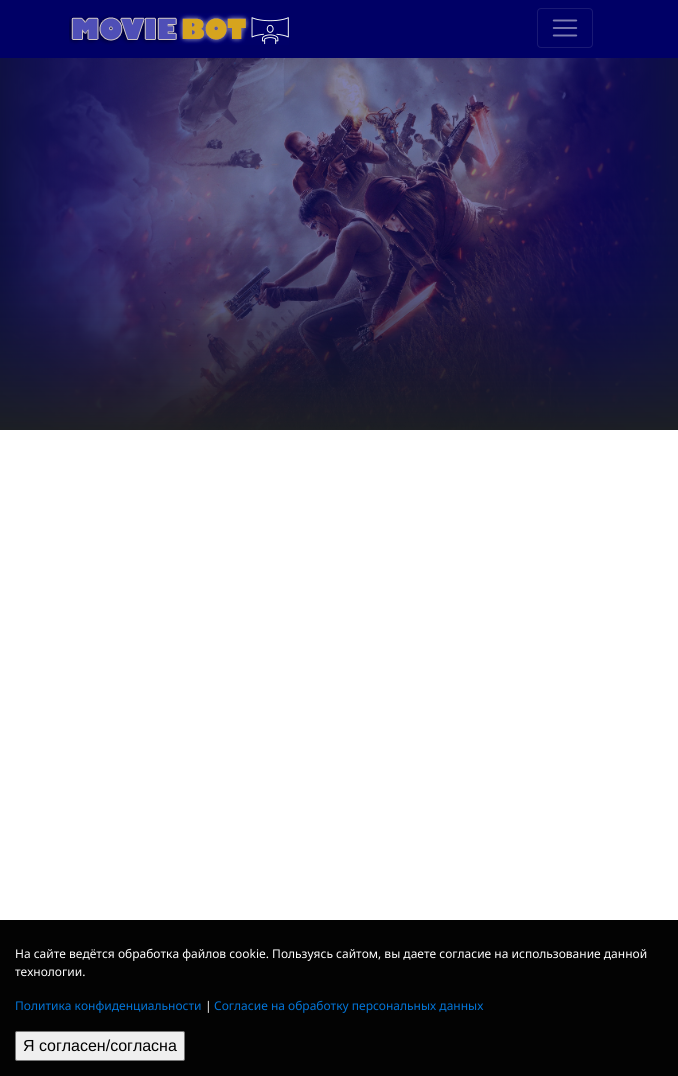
#include <cairo.h>
#include <math.h>
#include <stddef.h>


static void set_color(cairo_t *cr, unsigned color) {
    cairo_set_source_rgb(cr, (color >> 16) / 255.0, (color >> 8 & 255) / 255.0, (color & 255) / 255.0);
}

static void draw_text(cairo_t *cr, double x, double y, const char *s, const char *family, double size, int italic, int bold, unsigned color) {
    cairo_select_font_face(cr, family, italic ? CAIRO_FONT_SLANT_ITALIC : CAIRO_FONT_SLANT_NORMAL,
        bold ? CAIRO_FONT_WEIGHT_BOLD : CAIRO_FONT_WEIGHT_NORMAL);
    cairo_set_font_size(cr, size);
    set_color(cr, color);
    cairo_move_to(cr, x, y);
    cairo_show_text(cr, s);
}

static void fill_rect(cairo_t *cr, double x, double y, double w, double h, unsigned color) {
    set_color(cr, color);
    cairo_rectangle(cr, x, y, w, h);
    cairo_fill(cr);
}

static void rounded_rect(cairo_t *cr, double x, double y, double w, double h, double r) {
    cairo_new_sub_path(cr);
    cairo_arc(cr, x + w - r, y + h - r, r, 0, M_PI / 2);
    cairo_arc(cr, x + r, y + h - r, r, M_PI / 2, M_PI);
    cairo_arc(cr, x + r, y + r, r, M_PI, 1.5 * M_PI);
    cairo_arc(cr, x + w - r, y + r, r, 1.5 * M_PI, 2 * M_PI);
    cairo_close_path(cr);
}

static void draw_image(cairo_t *cr, const char *path, double x, double y, double w, double h) {
    cairo_surface_t *image = cairo_image_surface_create_from_png(path);
    cairo_save(cr);
    cairo_set_source_surface(cr, image, x, y);
    cairo_rectangle(cr, x, y, w, h);
    cairo_fill(cr);
    cairo_restore(cr);
    cairo_surface_destroy(image);
}

int main(void) {
    cairo_surface_t *surface = cairo_image_surface_create(CAIRO_FORMAT_RGB24, 678, 1076);
    cairo_t *cr = cairo_create(surface);
    cairo_font_options_t *options = cairo_font_options_create();
    cairo_font_options_set_hint_metrics(options, CAIRO_HINT_METRICS_OFF);
    cairo_font_options_set_hint_style(options, CAIRO_HINT_STYLE_NONE);
    cairo_set_font_options(cr, options);
    cairo_set_miter_limit(cr, 4);
    set_color(cr, 0xFFFFFF);
    cairo_paint(cr);
    fill_rect(cr, 0, 0, 678, 58, 0x000066);
    draw_image(cr, "assets/img1.png", 69, 13, 220, 32);
    rounded_rect(cr, 537.5, 8.5, 55, 39, 3.5);
    set_color(cr, 0x1A1A75);
    cairo_set_line_width(cr, 1);
    cairo_stroke(cr);
    draw_image(cr, "assets/img2.png", 552, 19, 26, 18);
    draw_image(cr, "assets/img3.png", 0, 58, 678, 372);
    fill_rect(cr, 0, 920, 678, 156, 0x030303);
    draw_text(cr, 15, 958, "На сайте ведётся обработка файлов cookie. Пользуясь сайтом, вы даете согласие на использование данной", "Noto Sans", 12, 0, 0, 0xFFFFFF);
    draw_text(cr, 15, 976, "технологии.", "Noto Sans", 12, 0, 0, 0xFFFFFF);
    draw_text(cr, 15, 1010, "Политика конфиденциальности", "Noto Sans", 12, 0, 0, 0x0275D8);
    draw_text(cr, 205, 1010, "|", "Noto Sans", 12, 0, 0, 0xFFFFFF);
    draw_text(cr, 214, 1010, "Согласие на обработку персональных данных", "Noto Sans", 12, 0, 0, 0x0275D8);
    set_color(cr, 0xEFEFEF);
    rounded_rect(cr, 15.5, 1031.5, 169, 29, 1.5);
    cairo_fill_preserve(cr);
    set_color(cr, 0x767676);
    cairo_stroke(cr);
    draw_text(cr, 23, 1051, "Я согласен/согласна", "Liberation Sans", 16, 0, 0, 0x000000);
    cairo_surface_write_to_png(surface, "output.png");
    cairo_font_options_destroy(options);
    cairo_destroy(cr);
    cairo_surface_destroy(surface);
    return 0;
}
